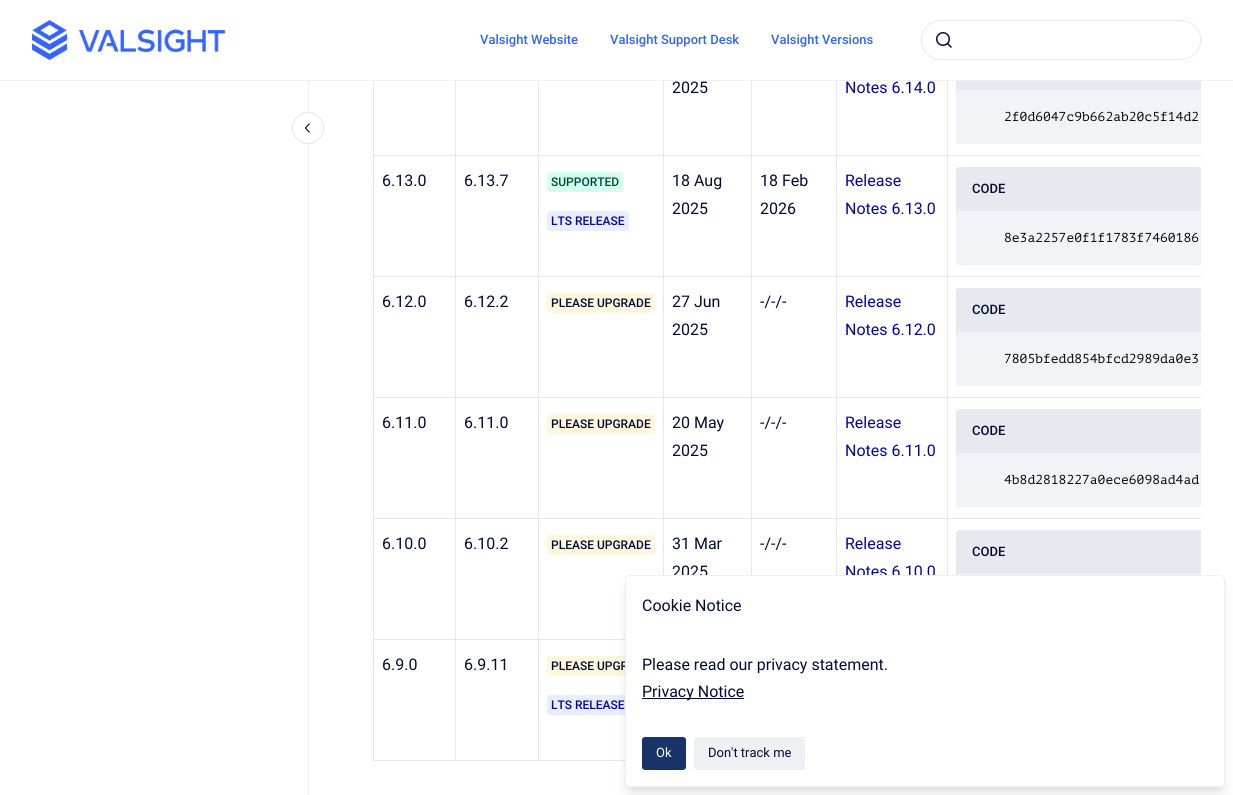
#include <cairo.h>
#include <math.h>
#include <stddef.h>


static void set_color(cairo_t *cr, unsigned color) {
    cairo_set_source_rgb(cr, (color >> 16) / 255.0, (color >> 8 & 255) / 255.0, (color & 255) / 255.0);
}

static void draw_text(cairo_t *cr, double x, double y, const char *s, const char *family, double size, int italic, int bold, unsigned color) {
    cairo_select_font_face(cr, family, italic ? CAIRO_FONT_SLANT_ITALIC : CAIRO_FONT_SLANT_NORMAL,
        bold ? CAIRO_FONT_WEIGHT_BOLD : CAIRO_FONT_WEIGHT_NORMAL);
    cairo_set_font_size(cr, size);
    set_color(cr, color);
    cairo_move_to(cr, x, y);
    cairo_show_text(cr, s);
}

static void fill_rect(cairo_t *cr, double x, double y, double w, double h, unsigned color) {
    set_color(cr, color);
    cairo_rectangle(cr, x, y, w, h);
    cairo_fill(cr);
}

static void rounded_rect(cairo_t *cr, double x, double y, double w, double h, double r) {
    cairo_new_sub_path(cr);
    cairo_arc(cr, x + w - r, y + h - r, r, 0, M_PI / 2);
    cairo_arc(cr, x + r, y + h - r, r, M_PI / 2, M_PI);
    cairo_arc(cr, x + r, y + r, r, M_PI, 1.5 * M_PI);
    cairo_arc(cr, x + w - r, y + r, r, 1.5 * M_PI, 2 * M_PI);
    cairo_close_path(cr);
}

static void draw_shadow(cairo_t *cr, double x, double y, double w, double h, double r, double blur, double alpha) {
    cairo_push_group_with_content(cr, CAIRO_CONTENT_ALPHA);
    cairo_set_operator(cr, CAIRO_OPERATOR_SOURCE);
    for (int i = 15; i >= -15 && fmin(w, h) + blur * i / 3 > 0; i -= 2) {
        double e = blur * i / 6;
        cairo_set_source_rgba(cr, 0, 0, 0, alpha * erfc((i - 1) / 8.5) / 2);
        rounded_rect(cr, x - e, y - e, w + 2 * e, h + 2 * e, fmax(0, fmin(r + e + blur * .6, fmin(w, h) / 2 + e)));
        cairo_fill(cr);
    }
    cairo_pattern_t *soft = cairo_pop_group(cr);
    cairo_mask(cr, soft);
    cairo_pattern_destroy(soft);
}

static void draw_image(cairo_t *cr, const char *path, double x, double y, double w, double h) {
    cairo_surface_t *image = cairo_image_surface_create_from_png(path);
    cairo_save(cr);
    cairo_set_source_surface(cr, image, x, y);
    cairo_rectangle(cr, x, y, w, h);
    cairo_fill(cr);
    cairo_restore(cr);
    cairo_surface_destroy(image);
}

int main(void) {
    cairo_surface_t *surface = cairo_image_surface_create(CAIRO_FORMAT_RGB24, 1233, 795);
    cairo_t *cr = cairo_create(surface);
    cairo_font_options_t *options = cairo_font_options_create();
    cairo_font_options_set_hint_metrics(options, CAIRO_HINT_METRICS_OFF);
    cairo_font_options_set_hint_style(options, CAIRO_HINT_STYLE_NONE);
    cairo_set_font_options(cr, options);
    cairo_set_miter_limit(cr, 4);
    set_color(cr, 0xFFFFFF);
    cairo_paint(cr);
    set_color(cr, 0xE8E9EE);
    cairo_new_path(cr);
    cairo_move_to(cr, 959, 47);
    cairo_line_to(cr, 1201, 47);
    cairo_line_to(cr, 1201, 144);
    cairo_line_to(cr, 959, 144);
    cairo_curve_to(cr, 957.5, 144, 956, 142.5, 956, 141);
    cairo_line_to(cr, 956, 50);
    cairo_curve_to(cr, 956, 48.5, 957.5, 47, 959, 47);
    cairo_close_path(cr);
    cairo_fill(cr);
    fill_rect(cr, 956, 47, 245, 33, 0xFFFFFF);
    fill_rect(cr, 0, 80, 1233, 1, 0xEFF0F4);
    draw_image(cr, "assets/img1.png", 32, 20, 194, 40);
    draw_text(cr, 480, 44, "Valsight Website", "Roboto Medium", 13, 0, 0, 0x3363FF);
    draw_text(cr, 610, 44, "Valsight Support Desk", "Roboto Medium", 13, 0, 0, 0x3363FF);
    draw_text(cr, 771, 44, "Valsight Versions", "Roboto Medium", 13, 0, 0, 0x3363FF);
    rounded_rect(cr, 921.5, 20.5, 279, 39, 19.5);
    set_color(cr, 0xE2E5EB);
    cairo_set_line_width(cr, 1);
    cairo_stroke(cr);
    set_color(cr, 0xFFFFFF);
    rounded_rect(cr, 922, 21, 278, 38, 19);
    cairo_fill(cr);
    draw_image(cr, "assets/img2.png", 936, 32, 16, 16);
    fill_rect(cr, 308, 81, 1, 714, 0xEFF0F4);
    set_color(cr, 0xFFFFFF);
    cairo_new_path(cr);
    cairo_move_to(cr, 308, 144);
    cairo_curve_to(cr, 299, 144, 292, 137, 292, 128);
    cairo_curve_to(cr, 292, 119, 299, 112, 308, 112);
    cairo_curve_to(cr, 317, 112, 324, 119, 324, 128);
    cairo_curve_to(cr, 324, 137, 317, 144, 308, 144);
    cairo_close_path(cr);
    cairo_fill(cr);
    cairo_new_path(cr);
    cairo_move_to(cr, 308, 143.5);
    cairo_curve_to(cr, 299.5, 143.5, 292.5, 136.5, 292.5, 128);
    cairo_curve_to(cr, 292.5, 119.5, 299.5, 112.5, 308, 112.5);
    cairo_curve_to(cr, 316.5, 112.5, 323.5, 119.5, 323.5, 128);
    cairo_curve_to(cr, 323.5, 136.5, 316.5, 143.5, 308, 143.5);
    cairo_close_path(cr);
    set_color(cr, 0xE2E5EB);
    cairo_stroke(cr);
    cairo_new_path(cr);
    cairo_move_to(cr, 309, 132);
    cairo_line_to(cr, 305.5, 128);
    cairo_line_to(cr, 309, 124);
    set_color(cr, 0x000C34);
    cairo_set_line_width(cr, 1.2);
    cairo_set_line_cap(cr, CAIRO_LINE_CAP_SQUARE);
    cairo_stroke(cr);
    fill_rect(cr, 373, 760, 252, 1, 0xE2E5EB);
    fill_rect(cr, 373, 81, 1, 680, 0xE2E5EB);
    fill_rect(cr, 947, 155, 254, 1, 0xE2E5EB);
    fill_rect(cr, 947, 276, 254, 1, 0xE2E5EB);
    fill_rect(cr, 947, 397, 254, 1, 0xE2E5EB);
    fill_rect(cr, 947, 518, 254, 1, 0xE2E5EB);
    fill_rect(cr, 947, 518, 1, 57, 0xE2E5EB);
    fill_rect(cr, 836, 518, 112, 1, 0xE2E5EB);
    fill_rect(cr, 947, 397, 1, 122, 0xE2E5EB);
    fill_rect(cr, 836, 397, 112, 1, 0xE2E5EB);
    fill_rect(cr, 947, 276, 1, 122, 0xE2E5EB);
    fill_rect(cr, 836, 276, 112, 1, 0xE2E5EB);
    fill_rect(cr, 947, 155, 1, 122, 0xE2E5EB);
    fill_rect(cr, 836, 155, 112, 1, 0xE2E5EB);
    fill_rect(cr, 836, 518, 1, 57, 0xE2E5EB);
    fill_rect(cr, 751, 518, 86, 1, 0xE2E5EB);
    fill_rect(cr, 836, 397, 1, 122, 0xE2E5EB);
    fill_rect(cr, 751, 397, 86, 1, 0xE2E5EB);
    fill_rect(cr, 836, 276, 1, 122, 0xE2E5EB);
    fill_rect(cr, 751, 276, 86, 1, 0xE2E5EB);
    fill_rect(cr, 836, 155, 1, 122, 0xE2E5EB);
    fill_rect(cr, 751, 155, 86, 1, 0xE2E5EB);
    fill_rect(cr, 751, 518, 1, 57, 0xE2E5EB);
    fill_rect(cr, 663, 518, 89, 1, 0xE2E5EB);
    fill_rect(cr, 751, 397, 1, 122, 0xE2E5EB);
    fill_rect(cr, 663, 397, 89, 1, 0xE2E5EB);
    fill_rect(cr, 751, 276, 1, 122, 0xE2E5EB);
    fill_rect(cr, 663, 276, 89, 1, 0xE2E5EB);
    fill_rect(cr, 751, 155, 1, 122, 0xE2E5EB);
    fill_rect(cr, 663, 155, 89, 1, 0xE2E5EB);
    fill_rect(cr, 663, 518, 1, 57, 0xE2E5EB);
    fill_rect(cr, 538, 518, 126, 1, 0xE2E5EB);
    fill_rect(cr, 663, 397, 1, 122, 0xE2E5EB);
    fill_rect(cr, 538, 397, 126, 1, 0xE2E5EB);
    fill_rect(cr, 663, 276, 1, 122, 0xE2E5EB);
    fill_rect(cr, 538, 276, 126, 1, 0xE2E5EB);
    fill_rect(cr, 663, 155, 1, 122, 0xE2E5EB);
    fill_rect(cr, 538, 155, 126, 1, 0xE2E5EB);
    fill_rect(cr, 538, 639, 87, 1, 0xE2E5EB);
    fill_rect(cr, 538, 639, 1, 122, 0xE2E5EB);
    fill_rect(cr, 455, 639, 84, 1, 0xE2E5EB);
    fill_rect(cr, 538, 518, 1, 122, 0xE2E5EB);
    fill_rect(cr, 455, 518, 84, 1, 0xE2E5EB);
    fill_rect(cr, 538, 397, 1, 122, 0xE2E5EB);
    fill_rect(cr, 455, 397, 84, 1, 0xE2E5EB);
    fill_rect(cr, 538, 276, 1, 122, 0xE2E5EB);
    fill_rect(cr, 455, 276, 84, 1, 0xE2E5EB);
    fill_rect(cr, 538, 155, 1, 122, 0xE2E5EB);
    fill_rect(cr, 455, 155, 84, 1, 0xE2E5EB);
    fill_rect(cr, 455, 639, 1, 122, 0xE2E5EB);
    fill_rect(cr, 373, 639, 83, 1, 0xE2E5EB);
    fill_rect(cr, 455, 518, 1, 122, 0xE2E5EB);
    fill_rect(cr, 373, 518, 83, 1, 0xE2E5EB);
    fill_rect(cr, 455, 397, 1, 122, 0xE2E5EB);
    fill_rect(cr, 373, 397, 83, 1, 0xE2E5EB);
    fill_rect(cr, 455, 276, 1, 122, 0xE2E5EB);
    fill_rect(cr, 373, 276, 83, 1, 0xE2E5EB);
    fill_rect(cr, 455, 155, 1, 122, 0xE2E5EB);
    fill_rect(cr, 373, 155, 83, 1, 0xE2E5EB);
    fill_rect(cr, 455, 81, 1, 75, 0xE2E5EB);
    fill_rect(cr, 538, 81, 1, 75, 0xE2E5EB);
    fill_rect(cr, 663, 81, 1, 75, 0xE2E5EB);
    draw_text(cr, 672, 93, "2025", "Roboto", 16, 0, 0, 0x000C34);
    fill_rect(cr, 751, 81, 1, 75, 0xE2E5EB);
    fill_rect(cr, 836, 81, 1, 75, 0xE2E5EB);
    draw_text(cr, 845, 93, "Notes 6.14.0", "Roboto", 16, 0, 0, 0x0404A3);
    fill_rect(cr, 947, 81, 1, 75, 0xE2E5EB);
    set_color(cr, 0xF2F3F7);
    cairo_new_path(cr);
    cairo_move_to(cr, 959, 90);
    cairo_line_to(cr, 1201, 90);
    cairo_line_to(cr, 1201, 144);
    cairo_line_to(cr, 959, 144);
    cairo_curve_to(cr, 957.5, 144, 956, 142.5, 956, 141);
    cairo_line_to(cr, 956, 93);
    cairo_curve_to(cr, 956, 91.5, 957.5, 90, 959, 90);
    cairo_close_path(cr);
    cairo_fill(cr);
    draw_text(cr, 1004, 121, "2f0d6047c9b662ab20c5f14d2", "PT Mono", 13, 0, 0, 0x000000);
    draw_text(cr, 382, 186, "6.13.0", "Roboto", 16, 0, 0, 0x000C34);
    draw_text(cr, 464, 186, "6.13.7", "Roboto", 16, 0, 0, 0x000C34);
    set_color(cr, 0xD4FFEE);
    rounded_rect(cr, 547, 172, 76, 20, 3);
    cairo_fill(cr);
    draw_text(cr, 551, 186, "SUPPORTED", "Roboto Medium", 12, 0, 0, 0x004938);
    set_color(cr, 0xE7EFFF);
    rounded_rect(cr, 547, 211, 82, 20, 3);
    cairo_fill(cr);
    draw_text(cr, 551, 225, "LTS RELEASE", "Roboto Medium", 12, 0, 0, 0x0404A3);
    draw_text(cr, 672, 186, "18 Aug", "Roboto", 16, 0, 0, 0x000C34);
    draw_text(cr, 672, 214, "2025", "Roboto", 16, 0, 0, 0x000C34);
    draw_text(cr, 760, 186, "18 Feb", "Roboto", 16, 0, 0, 0x000C34);
    draw_text(cr, 760, 214, "2026", "Roboto", 16, 0, 0, 0x000C34);
    draw_text(cr, 845, 186, "Release", "Roboto", 16, 0, 0, 0x0404A3);
    draw_text(cr, 845, 214, "Notes 6.13.0", "Roboto", 16, 0, 0, 0x0404A3);
    set_color(cr, 0xE8E9EE);
    cairo_new_path(cr);
    cairo_move_to(cr, 959, 167);
    cairo_line_to(cr, 1201, 167);
    cairo_line_to(cr, 1201, 265);
    cairo_line_to(cr, 959, 265);
    cairo_curve_to(cr, 957.5, 265, 956, 263.5, 956, 262);
    cairo_line_to(cr, 956, 170);
    cairo_curve_to(cr, 956, 168.5, 957.5, 167, 959, 167);
    cairo_close_path(cr);
    cairo_fill(cr);
    draw_text(cr, 972, 193, "CODE", "Roboto Medium", 13, 0, 0, 0x000C34);
    set_color(cr, 0xF2F3F7);
    cairo_new_path(cr);
    cairo_move_to(cr, 959, 211);
    cairo_line_to(cr, 1201, 211);
    cairo_line_to(cr, 1201, 265);
    cairo_line_to(cr, 959, 265);
    cairo_curve_to(cr, 957.5, 265, 956, 263.5, 956, 262);
    cairo_line_to(cr, 956, 214);
    cairo_curve_to(cr, 956, 212.5, 957.5, 211, 959, 211);
    cairo_close_path(cr);
    cairo_fill(cr);
    draw_text(cr, 1004, 242, "8e3a2257e0f1f1783f7460186", "PT Mono", 13, 0, 0, 0x000000);
    draw_text(cr, 382, 307, "6.12.0", "Roboto", 16, 0, 0, 0x000C34);
    draw_text(cr, 464, 307, "6.12.2", "Roboto", 16, 0, 0, 0x000C34);
    set_color(cr, 0xFFF6DE);
    rounded_rect(cr, 547, 293, 108, 20, 3);
    cairo_fill(cr);
    draw_text(cr, 551, 307, "PLEASE UPGRADE", "Roboto Medium", 12, 0, 0, 0x000C34);
    draw_text(cr, 672, 307, "27 Jun", "Roboto", 16, 0, 0, 0x000C34);
    draw_text(cr, 672, 335, "2025", "Roboto", 16, 0, 0, 0x000C34);
    draw_text(cr, 760, 307, "-/-/-", "Roboto", 16, 0, 0, 0x000C34);
    draw_text(cr, 845, 307, "Release", "Roboto", 16, 0, 0, 0x0404A3);
    draw_text(cr, 845, 335, "Notes 6.12.0", "Roboto", 16, 0, 0, 0x0404A3);
    set_color(cr, 0xE8E9EE);
    cairo_new_path(cr);
    cairo_move_to(cr, 959, 288);
    cairo_line_to(cr, 1201, 288);
    cairo_line_to(cr, 1201, 386);
    cairo_line_to(cr, 959, 386);
    cairo_curve_to(cr, 957.5, 386, 956, 384.5, 956, 383);
    cairo_line_to(cr, 956, 291);
    cairo_curve_to(cr, 956, 289.5, 957.5, 288, 959, 288);
    cairo_close_path(cr);
    cairo_fill(cr);
    draw_text(cr, 972, 314, "CODE", "Roboto Medium", 13, 0, 0, 0x000C34);
    set_color(cr, 0xF2F3F7);
    cairo_new_path(cr);
    cairo_move_to(cr, 959, 332);
    cairo_line_to(cr, 1201, 332);
    cairo_line_to(cr, 1201, 386);
    cairo_line_to(cr, 959, 386);
    cairo_curve_to(cr, 957.5, 386, 956, 384.5, 956, 383);
    cairo_line_to(cr, 956, 335);
    cairo_curve_to(cr, 956, 333.5, 957.5, 332, 959, 332);
    cairo_close_path(cr);
    cairo_fill(cr);
    draw_text(cr, 1004, 363, "7805bfedd854bfcd2989da0e3", "PT Mono", 13, 0, 0, 0x000000);
    draw_text(cr, 382, 428, "6.11.0", "Roboto", 16, 0, 0, 0x000C34);
    draw_text(cr, 464, 428, "6.11.0", "Roboto", 16, 0, 0, 0x000C34);
    set_color(cr, 0xFFF6DE);
    rounded_rect(cr, 547, 414, 108, 20, 3);
    cairo_fill(cr);
    draw_text(cr, 551, 428, "PLEASE UPGRADE", "Roboto Medium", 12, 0, 0, 0x000C34);
    draw_text(cr, 672, 428, "20 May", "Roboto", 16, 0, 0, 0x000C34);
    draw_text(cr, 672, 456, "2025", "Roboto", 16, 0, 0, 0x000C34);
    draw_text(cr, 760, 428, "-/-/-", "Roboto", 16, 0, 0, 0x000C34);
    draw_text(cr, 845, 428, "Release", "Roboto", 16, 0, 0, 0x0404A3);
    draw_text(cr, 845, 456, "Notes 6.11.0", "Roboto", 16, 0, 0, 0x0404A3);
    set_color(cr, 0xE8E9EE);
    cairo_new_path(cr);
    cairo_move_to(cr, 959, 409);
    cairo_line_to(cr, 1201, 409);
    cairo_line_to(cr, 1201, 507);
    cairo_line_to(cr, 959, 507);
    cairo_curve_to(cr, 957.5, 507, 956, 505.5, 956, 504);
    cairo_line_to(cr, 956, 412);
    cairo_curve_to(cr, 956, 410.5, 957.5, 409, 959, 409);
    cairo_close_path(cr);
    cairo_fill(cr);
    draw_text(cr, 972, 435, "CODE", "Roboto Medium", 13, 0, 0, 0x000C34);
    set_color(cr, 0xF2F3F7);
    cairo_new_path(cr);
    cairo_move_to(cr, 959, 453);
    cairo_line_to(cr, 1201, 453);
    cairo_line_to(cr, 1201, 507);
    cairo_line_to(cr, 959, 507);
    cairo_curve_to(cr, 957.5, 507, 956, 505.5, 956, 504);
    cairo_line_to(cr, 956, 456);
    cairo_curve_to(cr, 956, 454.5, 957.5, 453, 959, 453);
    cairo_close_path(cr);
    cairo_fill(cr);
    draw_text(cr, 1004, 484, "4b8d2818227a0ece6098ad4ad", "PT Mono", 13, 0, 0, 0x000000);
    draw_text(cr, 382, 549, "6.10.0", "Roboto", 16, 0, 0, 0x000C34);
    draw_text(cr, 464, 549, "6.10.2", "Roboto", 16, 0, 0, 0x000C34);
    set_color(cr, 0xFFF6DE);
    rounded_rect(cr, 547, 535, 108, 20, 3);
    cairo_fill(cr);
    draw_text(cr, 551, 549, "PLEASE UPGRADE", "Roboto Medium", 12, 0, 0, 0x000C34);
    draw_text(cr, 672, 549, "31 Mar", "Roboto", 16, 0, 0, 0x000C34);
    draw_text(cr, 672, 577, "2025", "Roboto", 16, 0, 0, 0x000C34);
    draw_text(cr, 760, 549, "-/-/-", "Roboto", 16, 0, 0, 0x000C34);
    draw_text(cr, 845, 549, "Release", "Roboto", 16, 0, 0, 0x0404A3);
    draw_text(cr, 845, 577, "Notes 6.10.0", "Roboto", 16, 0, 0, 0x0404A3);
    set_color(cr, 0xE8E9EE);
    cairo_new_path(cr);
    cairo_move_to(cr, 959, 530);
    cairo_line_to(cr, 1201, 530);
    cairo_line_to(cr, 1201, 628);
    cairo_line_to(cr, 959, 628);
    cairo_curve_to(cr, 957.5, 628, 956, 626.5, 956, 625);
    cairo_line_to(cr, 956, 533);
    cairo_curve_to(cr, 956, 531.5, 957.5, 530, 959, 530);
    cairo_close_path(cr);
    cairo_fill(cr);
    draw_text(cr, 972, 556, "CODE", "Roboto Medium", 13, 0, 0, 0x000C34);
    set_color(cr, 0xF2F3F7);
    cairo_new_path(cr);
    cairo_move_to(cr, 959, 574);
    cairo_line_to(cr, 1201, 574);
    cairo_line_to(cr, 1201, 628);
    cairo_line_to(cr, 959, 628);
    cairo_curve_to(cr, 957.5, 628, 956, 626.5, 956, 625);
    cairo_line_to(cr, 956, 577);
    cairo_curve_to(cr, 956, 575.5, 957.5, 574, 959, 574);
    cairo_close_path(cr);
    cairo_fill(cr);
    draw_text(cr, 382, 670, "6.9.0", "Roboto", 16, 0, 0, 0x000C34);
    draw_text(cr, 464, 670, "6.9.11", "Roboto", 16, 0, 0, 0x000C34);
    set_color(cr, 0xFFF6DE);
    rounded_rect(cr, 547, 656, 108, 20, 3);
    cairo_fill(cr);
    draw_text(cr, 551, 670, "PLEASE UPGR", "Roboto Medium", 12, 0, 0, 0x000C34);
    set_color(cr, 0xE7EFFF);
    rounded_rect(cr, 547, 695, 82, 20, 3);
    cairo_fill(cr);
    draw_text(cr, 551, 709, "LTS RELEASE", "Roboto Medium", 12, 0, 0, 0x0404A3);
    set_color(cr, 0x000000);
    draw_shadow(cr, 627, 581, 596, 208, 3, 3, 0.05);
    draw_shadow(cr, 628, 588, 594, 206, 2, 7.5, 0.1);
    set_color(cr, 0xFFFFFF);
    rounded_rect(cr, 625.5, 575.5, 599, 211, 4.5);
    cairo_fill_preserve(cr);
    set_color(cr, 0xEFF0F4);
    cairo_set_line_width(cr, 1);
    cairo_set_line_cap(cr, CAIRO_LINE_CAP_BUTT);
    cairo_stroke(cr);
    draw_text(cr, 642, 611, "Cookie Notice", "Roboto", 16, 0, 0, 0x000C34);
    draw_text(cr, 642, 670, "Please read our privacy statement.", "Roboto", 16, 0, 0, 0x000C34);
    fill_rect(cr, 642, 698, 102, 1, 0x000C34);
    draw_text(cr, 642, 697, "Privacy Notice", "Roboto", 16, 0, 0, 0x000C34);
    set_color(cr, 0x193468);
    rounded_rect(cr, 642, 737, 44, 33, 3);
    cairo_fill(cr);
    draw_text(cr, 656, 757, "Ok", "Roboto", 13, 0, 0, 0xFFFFFF);
    set_color(cr, 0xEFF0F4);
    rounded_rect(cr, 694, 737, 111, 33, 3);
    cairo_fill(cr);
    draw_text(cr, 708, 757, "Don't track me", "Roboto", 13, 0, 0, 0x000C34);
    cairo_surface_write_to_png(surface, "output.png");
    cairo_font_options_destroy(options);
    cairo_destroy(cr);
    cairo_surface_destroy(surface);
    return 0;
}
